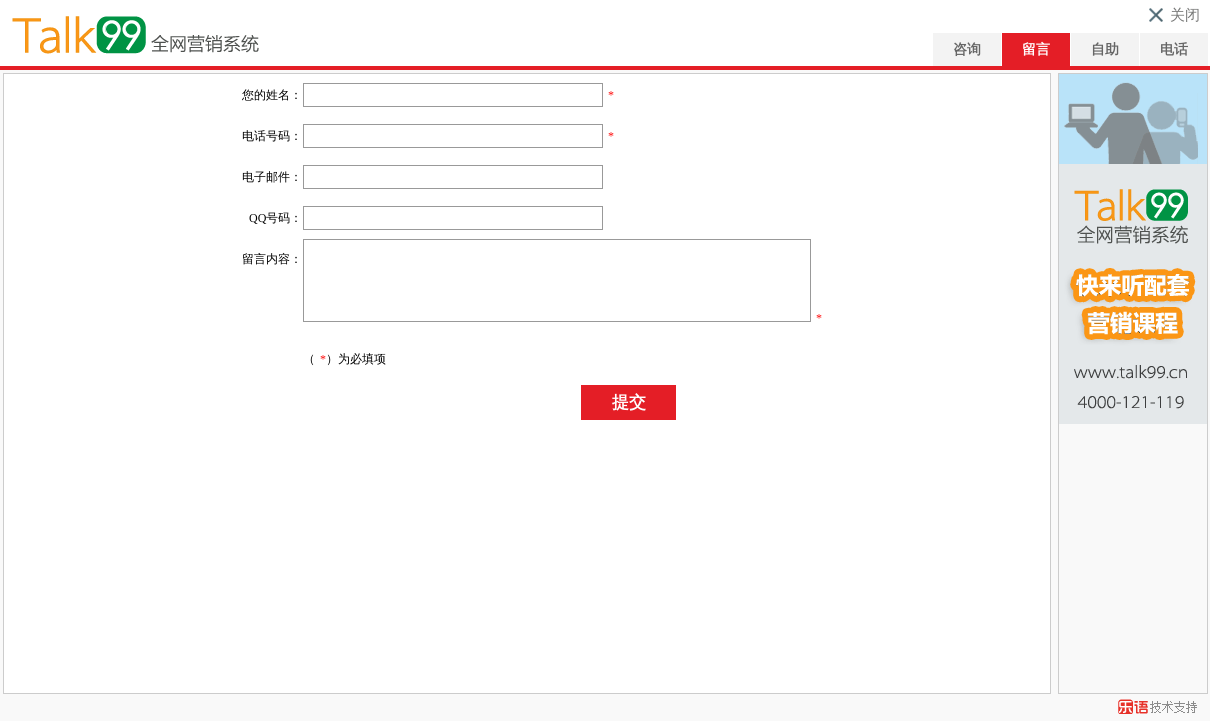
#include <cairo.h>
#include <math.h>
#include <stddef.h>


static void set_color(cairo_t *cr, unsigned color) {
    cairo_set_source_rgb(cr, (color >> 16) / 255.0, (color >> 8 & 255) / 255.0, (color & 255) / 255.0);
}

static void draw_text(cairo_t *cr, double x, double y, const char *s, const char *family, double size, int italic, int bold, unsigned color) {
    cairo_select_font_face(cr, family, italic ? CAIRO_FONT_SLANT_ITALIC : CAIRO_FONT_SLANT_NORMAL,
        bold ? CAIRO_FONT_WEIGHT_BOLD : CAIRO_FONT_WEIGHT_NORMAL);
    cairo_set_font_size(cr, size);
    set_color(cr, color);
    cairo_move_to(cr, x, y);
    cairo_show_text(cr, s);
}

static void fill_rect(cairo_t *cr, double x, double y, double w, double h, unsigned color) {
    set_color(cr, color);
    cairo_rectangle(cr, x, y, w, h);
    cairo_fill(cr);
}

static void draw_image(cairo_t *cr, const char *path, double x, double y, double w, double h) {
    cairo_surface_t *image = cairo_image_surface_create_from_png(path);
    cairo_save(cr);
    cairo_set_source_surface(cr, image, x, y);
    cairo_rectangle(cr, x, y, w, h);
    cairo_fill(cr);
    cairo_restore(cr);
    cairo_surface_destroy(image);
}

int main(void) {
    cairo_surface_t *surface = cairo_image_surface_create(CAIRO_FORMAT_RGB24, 1210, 721);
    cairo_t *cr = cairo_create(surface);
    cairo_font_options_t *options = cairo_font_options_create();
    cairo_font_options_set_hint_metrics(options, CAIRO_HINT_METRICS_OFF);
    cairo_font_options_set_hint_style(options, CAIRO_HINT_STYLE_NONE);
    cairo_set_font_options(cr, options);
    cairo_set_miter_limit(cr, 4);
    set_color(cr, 0xF9F9F9);
    cairo_paint(cr);
    fill_rect(cr, 0, 0, 1210, 66, 0xFFFFFF);
    draw_image(cr, "assets/img1.png", 12, 16, 247, 38);
    draw_image(cr, "assets/img2.png", 1149, 8, 14, 14);
    draw_text(cr, 1170, 20, "关闭", "WenQuanYi Zen Hei Medium", 15, 0, 0, 0x777877);
    fill_rect(cr, 933, 33, 68, 33, 0xF3F3F3);
    draw_text(cr, 953, 54, "咨询", "WenQuanYi Zen Hei", 14, 0, 1, 0x666666);
    fill_rect(cr, 1002, 33, 68, 33, 0xE41E26);
    draw_text(cr, 1022, 54, "留言", "WenQuanYi Zen Hei", 14, 0, 1, 0xFFFFFF);
    fill_rect(cr, 1071, 33, 68, 33, 0xF3F3F3);
    draw_text(cr, 1091, 54, "自助", "WenQuanYi Zen Hei", 14, 0, 1, 0x666666);
    fill_rect(cr, 1140, 33, 68, 33, 0xF3F3F3);
    draw_text(cr, 1160, 54, "电话", "WenQuanYi Zen Hei", 14, 0, 1, 0x666666);
    fill_rect(cr, 0, 66, 1210, 4, 0xE41E26);
    set_color(cr, 0xFFFFFF);
    cairo_rectangle(cr, 3.5, 73.5, 1047, 620);
    cairo_fill_preserve(cr);
    set_color(cr, 0xCCCCCC);
    cairo_set_line_width(cr, 1);
    cairo_stroke(cr);
    draw_text(cr, 242, 99, "您的姓名：", "WenQuanYi Zen Hei Medium", 12, 0, 0, 0x000000);
    cairo_rectangle(cr, 303.5, 83.5, 299, 23);
    set_color(cr, 0x999999);
    cairo_stroke(cr);
    draw_text(cr, 608, 99, "*", "Liberation Serif", 12, 0, 0, 0xFF0000);
    draw_text(cr, 242, 140, "电话号码：", "WenQuanYi Zen Hei Medium", 12, 0, 0, 0x000000);
    cairo_rectangle(cr, 303.5, 124.5, 299, 23);
    set_color(cr, 0x999999);
    cairo_stroke(cr);
    draw_text(cr, 608, 140, "*", "Liberation Serif", 12, 0, 0, 0xFF0000);
    draw_text(cr, 242, 181, "电子邮件：", "WenQuanYi Zen Hei Medium", 12, 0, 0, 0x000000);
    cairo_rectangle(cr, 303.5, 165.5, 299, 23);
    set_color(cr, 0x999999);
    cairo_stroke(cr);
    draw_text(cr, 249, 222, "QQ", "Liberation Serif", 12, 0, 0, 0x000000);
    draw_text(cr, 266, 222, "号码：", "WenQuanYi Zen Hei Medium", 12, 0, 0, 0x000000);
    cairo_rectangle(cr, 303.5, 206.5, 299, 23);
    set_color(cr, 0x999999);
    cairo_stroke(cr);
    draw_text(cr, 242, 263, "留言内容：", "WenQuanYi Zen Hei Medium", 12, 0, 0, 0x000000);
    cairo_rectangle(cr, 303.5, 239.5, 507, 82);
    set_color(cr, 0x999999);
    cairo_stroke(cr);
    draw_text(cr, 816, 322, "*", "Liberation Serif", 12, 0, 0, 0xFF0000);
    draw_text(cr, 303, 363, "（", "WenQuanYi Zen Hei Medium", 12, 0, 0, 0x000000);
    draw_text(cr, 320, 363, "*", "Liberation Serif", 12, 0, 0, 0xFF0000);
    draw_text(cr, 326, 363, "）为必填项", "WenQuanYi Zen Hei Medium", 12, 0, 0, 0x000000);
    fill_rect(cr, 581, 385, 95, 35, 0xE41E26);
    draw_text(cr, 612, 408, "提交", "WenQuanYi Zen Hei", 17, 0, 1, 0xFFFFFF);
    draw_image(cr, "assets/img3.png", 1059, 74, 148, 350);
    cairo_rectangle(cr, 1058.5, 73.5, 149, 620);
    set_color(cr, 0xCCCCCC);
    cairo_stroke(cr);
    draw_image(cr, "assets/img4.png", 1118, 699, 79, 15);
    cairo_surface_write_to_png(surface, "output.png");
    cairo_font_options_destroy(options);
    cairo_destroy(cr);
    cairo_surface_destroy(surface);
    return 0;
}
